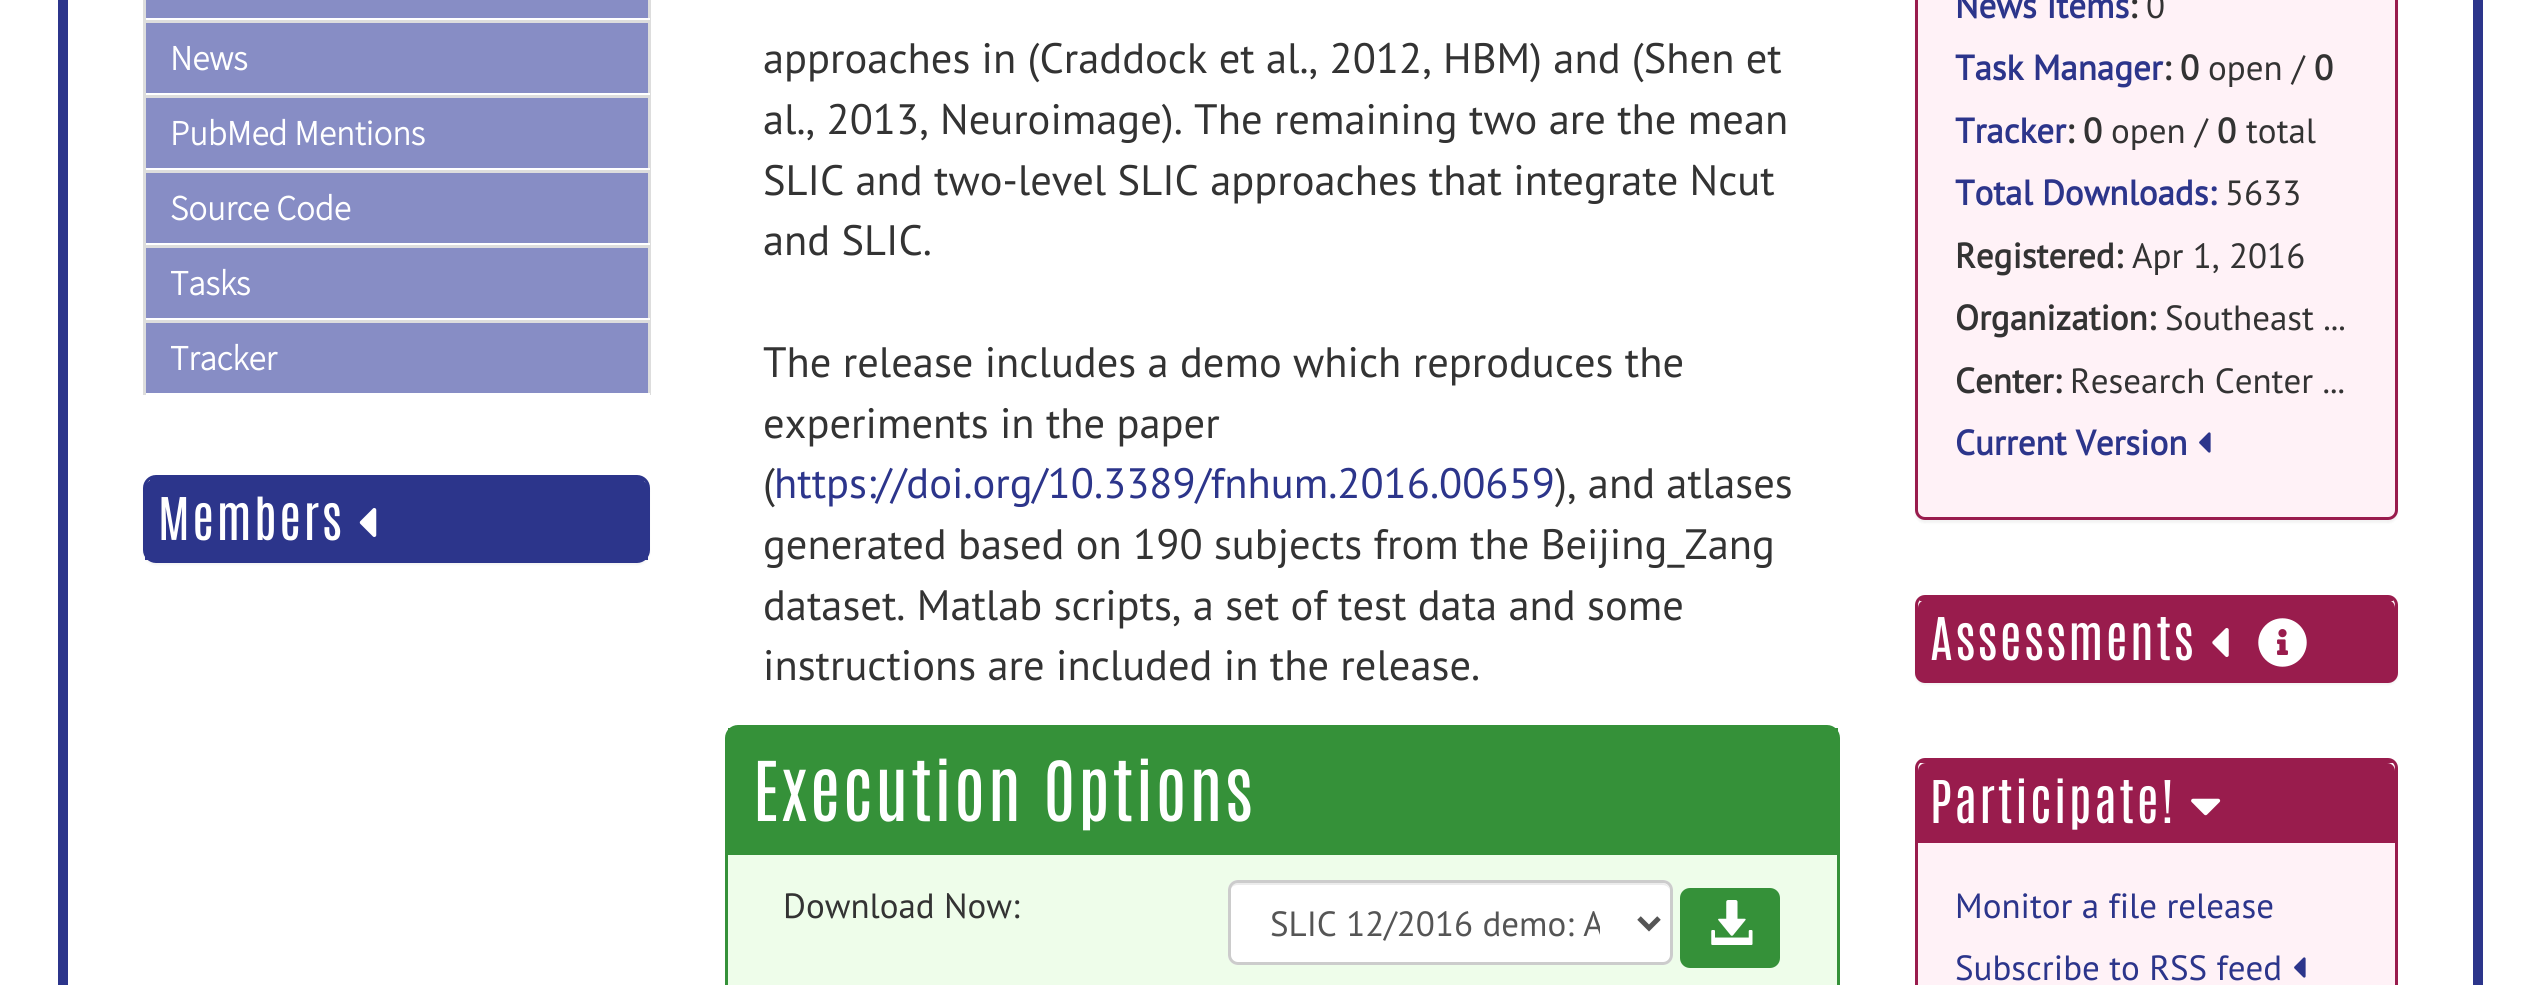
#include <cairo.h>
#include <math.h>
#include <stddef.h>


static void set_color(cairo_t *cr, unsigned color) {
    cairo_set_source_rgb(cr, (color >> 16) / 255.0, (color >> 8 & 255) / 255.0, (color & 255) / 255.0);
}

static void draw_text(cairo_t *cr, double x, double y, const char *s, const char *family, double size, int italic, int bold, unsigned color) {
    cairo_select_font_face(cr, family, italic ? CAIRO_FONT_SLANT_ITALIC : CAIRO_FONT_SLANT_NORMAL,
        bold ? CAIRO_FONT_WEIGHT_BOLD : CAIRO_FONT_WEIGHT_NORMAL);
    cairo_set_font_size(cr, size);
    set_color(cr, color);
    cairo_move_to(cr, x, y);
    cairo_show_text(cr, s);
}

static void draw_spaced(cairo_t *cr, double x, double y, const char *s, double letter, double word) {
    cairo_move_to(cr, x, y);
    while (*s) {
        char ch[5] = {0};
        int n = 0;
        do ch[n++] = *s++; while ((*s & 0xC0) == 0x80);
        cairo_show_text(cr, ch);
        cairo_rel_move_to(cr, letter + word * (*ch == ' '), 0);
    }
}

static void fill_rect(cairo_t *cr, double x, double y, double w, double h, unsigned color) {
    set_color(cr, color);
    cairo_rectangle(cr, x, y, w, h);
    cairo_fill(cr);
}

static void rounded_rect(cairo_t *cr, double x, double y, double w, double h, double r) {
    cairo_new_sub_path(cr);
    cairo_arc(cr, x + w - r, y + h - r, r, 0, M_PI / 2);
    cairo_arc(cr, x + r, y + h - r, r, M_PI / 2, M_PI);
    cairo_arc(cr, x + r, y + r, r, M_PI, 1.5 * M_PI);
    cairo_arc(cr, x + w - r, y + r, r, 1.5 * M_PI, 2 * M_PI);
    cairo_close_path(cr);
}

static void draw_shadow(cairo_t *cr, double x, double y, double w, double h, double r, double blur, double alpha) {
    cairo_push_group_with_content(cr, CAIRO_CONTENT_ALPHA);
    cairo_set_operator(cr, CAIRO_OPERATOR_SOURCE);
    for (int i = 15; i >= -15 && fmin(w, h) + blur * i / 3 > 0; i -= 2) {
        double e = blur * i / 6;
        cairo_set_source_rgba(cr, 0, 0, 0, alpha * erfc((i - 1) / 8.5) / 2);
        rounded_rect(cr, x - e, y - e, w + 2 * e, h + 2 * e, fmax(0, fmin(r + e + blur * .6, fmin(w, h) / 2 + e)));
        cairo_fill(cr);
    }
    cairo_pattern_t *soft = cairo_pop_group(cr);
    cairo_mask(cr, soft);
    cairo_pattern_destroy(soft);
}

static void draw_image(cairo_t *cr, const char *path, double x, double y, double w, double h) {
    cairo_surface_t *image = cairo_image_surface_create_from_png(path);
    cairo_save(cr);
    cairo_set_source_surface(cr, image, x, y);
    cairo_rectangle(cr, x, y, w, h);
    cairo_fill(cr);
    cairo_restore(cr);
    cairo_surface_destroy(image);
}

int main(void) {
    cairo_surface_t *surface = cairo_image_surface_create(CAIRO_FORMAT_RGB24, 2539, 985);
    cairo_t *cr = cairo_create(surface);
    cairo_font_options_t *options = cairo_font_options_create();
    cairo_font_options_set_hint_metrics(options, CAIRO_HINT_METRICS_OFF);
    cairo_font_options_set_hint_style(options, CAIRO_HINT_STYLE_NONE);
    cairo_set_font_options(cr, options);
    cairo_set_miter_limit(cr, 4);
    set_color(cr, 0xFFFFFF);
    cairo_paint(cr);
    fill_rect(cr, 2473, 0, 10, 985, 0x2C358B);
    fill_rect(cr, 58, 0, 10, 985, 0x2C358B);
    fill_rect(cr, 146, 0, 502, 18, 0x878DC5);
    fill_rect(cr, 648, 0, 3, 20, 0xDDDDDD);
    fill_rect(cr, 648, 18, 2, 2, 0xFFFFFF);
    fill_rect(cr, 143, 0, 3, 20, 0xDDDDDD);
    fill_rect(cr, 146, 23, 502, 70, 0x878DC5);
    fill_rect(cr, 143, 20, 507, 3, 0xDDDDDD);
    fill_rect(cr, 648, 20, 3, 75, 0xDDDDDD);
    fill_rect(cr, 648, 93, 2, 2, 0xFFFFFF);
    fill_rect(cr, 143, 20, 3, 75, 0xDDDDDD);
    draw_text(cr, 170, 70, "News", "Source Sans Pro", 35, 0, 1, 0xFFFFFF);
    fill_rect(cr, 146, 98, 502, 70, 0x878DC5);
    fill_rect(cr, 143, 95, 507, 3, 0xDDDDDD);
    fill_rect(cr, 648, 95, 3, 75, 0xDDDDDD);
    fill_rect(cr, 648, 168, 2, 2, 0xFFFFFF);
    fill_rect(cr, 143, 95, 3, 75, 0xDDDDDD);
    draw_text(cr, 170, 145, "PubMed Mentions", "Source Sans Pro", 35, 0, 1, 0xFFFFFF);
    fill_rect(cr, 146, 173, 502, 70, 0x878DC5);
    fill_rect(cr, 143, 170, 507, 3, 0xDDDDDD);
    fill_rect(cr, 648, 170, 3, 75, 0xDDDDDD);
    fill_rect(cr, 648, 243, 2, 2, 0xFFFFFF);
    fill_rect(cr, 143, 170, 3, 75, 0xDDDDDD);
    draw_text(cr, 170, 220, "Source Code", "Source Sans Pro", 35, 0, 1, 0xFFFFFF);
    fill_rect(cr, 146, 248, 502, 70, 0x878DC5);
    fill_rect(cr, 143, 245, 507, 3, 0xDDDDDD);
    fill_rect(cr, 648, 245, 3, 75, 0xDDDDDD);
    fill_rect(cr, 648, 318, 2, 2, 0xFFFFFF);
    fill_rect(cr, 143, 245, 3, 75, 0xDDDDDD);
    draw_text(cr, 170, 295, "Tasks", "Source Sans Pro", 35, 0, 1, 0xFFFFFF);
    fill_rect(cr, 146, 323, 502, 70, 0x878DC5);
    fill_rect(cr, 143, 320, 507, 3, 0xDDDDDD);
    fill_rect(cr, 648, 320, 3, 75, 0xDDDDDD);
    fill_rect(cr, 648, 393, 2, 2, 0xFFFFFF);
    fill_rect(cr, 143, 320, 3, 75, 0xDDDDDD);
    draw_text(cr, 170, 370, "Tracker", "Source Sans Pro", 35, 0, 1, 0xFFFFFF);
    set_color(cr, 0x000000);
    draw_shadow(cr, 143, 478, 507, 87, 13, 1, 0.05);
    rounded_rect(cr, 144.5, 476.5, 504, 85, 11.5);
    set_color(cr, 0x2C358B);
    cairo_set_line_width(cr, 3);
    cairo_stroke(cr);
    fill_rect(cr, 150, 478, 495, 3, 0x2C358B);
    cairo_new_path(cr);
    cairo_move_to(cr, 153, 480);
    cairo_line_to(cr, 640, 480);
    cairo_curve_to(cr, 644.5, 480, 648, 483.5, 648, 488);
    cairo_line_to(cr, 648, 560);
    cairo_line_to(cr, 145, 560);
    cairo_line_to(cr, 145, 488);
    cairo_curve_to(cr, 145, 483.5, 148.5, 480, 153, 480);
    cairo_close_path(cr);
    cairo_fill(cr);
    cairo_select_font_face(cr, "Antonio", CAIRO_FONT_SLANT_NORMAL, CAIRO_FONT_WEIGHT_NORMAL);
    cairo_set_font_size(cr, 50);
    set_color(cr, 0xFFFFFF);
    draw_spaced(cr, 158, 540, "Members", 2.5, 0);
    draw_image(cr, "assets/img1.png", 359, 508, 18, 29);
    draw_text(cr, 763, 73, "approaches in (Craddock et al., 2012, HBM) and (Shen et", "PT Sans", 42.5, 0, 0, 0x333333);
    draw_text(cr, 763, 134, "al., 2013, Neuroimage). The remaining two are the mean", "PT Sans", 42.5, 0, 0, 0x333333);
    draw_text(cr, 763, 195, "SLIC and two-level SLIC approaches that integrate Ncut", "PT Sans", 42.5, 0, 0, 0x333333);
    draw_text(cr, 763, 255, "and SLIC.", "PT Sans", 42.5, 0, 0, 0x333333);
    draw_text(cr, 763, 377, "The release includes a demo which reproduces the", "PT Sans", 42.5, 0, 0, 0x333333);
    draw_text(cr, 763, 438, "experiments in the paper", "PT Sans", 42.5, 0, 0, 0x333333);
    draw_text(cr, 763, 498, "(", "PT Sans", 42.5, 0, 0, 0x333333);
    draw_text(cr, 774, 498, "https://doi.org/10.3389/fnhum.2016.00659", "PT Sans", 42.5, 0, 0, 0x2C358B);
    draw_text(cr, 1555, 498, "), and atlases", "PT Sans", 42.5, 0, 0, 0x333333);
    draw_text(cr, 763, 559, "generated based on 190 subjects from the Beijing_Zang", "PT Sans", 42.5, 0, 0, 0x333333);
    draw_text(cr, 763, 620, "dataset. Matlab scripts, a set of test data and some", "PT Sans", 42.5, 0, 0, 0x333333);
    draw_text(cr, 763, 680, "instructions are included in the release.", "PT Sans", 42.5, 0, 0, 0x333333);
    set_color(cr, 0xEEFDEA);
    rounded_rect(cr, 726.5, 726.5, 1112, 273, 11.5);
    cairo_fill_preserve(cr);
    set_color(cr, 0x359139);
    cairo_stroke(cr);
    fill_rect(cr, 728, 728, 1110, 127, 0x359139);
    cairo_select_font_face(cr, "Antonio", CAIRO_FONT_SLANT_NORMAL, CAIRO_FONT_WEIGHT_NORMAL);
    cairo_set_font_size(cr, 70);
    set_color(cr, 0xFFFFFF);
    draw_spaced(cr, 753, 821, "Execution Options", 2.5, 0);
    draw_text(cr, 783, 918, "Download Now:", "PT Sans", 35, 0, 0, 0x333333);
    set_color(cr, 0xFFFFFF);
    rounded_rect(cr, 1228, 880, 445, 85, 10);
    cairo_fill(cr);
    set_color(cr, 0xECECEC);
    cairo_new_path(cr);
    cairo_move_to(cr, 1238, 885);
    cairo_line_to(cr, 1662, 885);
    cairo_curve_to(cr, 1667, 885, 1670, 888, 1670, 892);
    cairo_curve_to(cr, 1670, 887, 1667, 883, 1662, 883);
    cairo_line_to(cr, 1238, 883);
    cairo_curve_to(cr, 1233, 883, 1230, 887, 1230, 892);
    cairo_curve_to(cr, 1230, 888, 1233, 885, 1238, 885);
    cairo_close_path(cr);
    cairo_fill(cr);
    rounded_rect(cr, 1229.5, 881.5, 442, 82, 8.5);
    set_color(cr, 0xCCCCCC);
    cairo_stroke(cr);
    cairo_new_path(cr);
    cairo_move_to(cr, 1639, 918);
    cairo_line_to(cr, 1649, 928);
    cairo_line_to(cr, 1659, 918);
    set_color(cr, 0x555555);
    cairo_set_line_width(cr, 5);
    cairo_stroke(cr);
    cairo_save(cr);
    cairo_rectangle(cr, 1270, 898, 330, 50);
    cairo_clip(cr);
    draw_text(cr, 1270, 936, "SLIC 12/2016 demo: A", "PT Sans", 35, 0, 0, 0x555555);
    cairo_restore(cr);
    set_color(cr, 0x359139);
    rounded_rect(cr, 1681.5, 889.5, 97, 77, 8.5);
    cairo_fill_preserve(cr);
    cairo_set_line_width(cr, 3);
    cairo_stroke(cr);
    draw_image(cr, "assets/img2.png", 1711, 900, 42, 45);
    set_color(cr, 0x000000);
    draw_shadow(cr, 1915, -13, 483, 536, 10, 1, 0.05);
    set_color(cr, 0xFFF2F7);
    cairo_new_path(cr);
    cairo_move_to(cr, 1925, -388);
    cairo_line_to(cr, 2388, -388);
    cairo_curve_to(cr, 2392, -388, 2395, -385, 2395, -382);
    cairo_line_to(cr, 2395, 510);
    cairo_curve_to(cr, 2395, 514, 2392, 518, 2388, 518);
    cairo_line_to(cr, 1925, 518);
    cairo_curve_to(cr, 1921, 518, 1918, 514, 1918, 510);
    cairo_line_to(cr, 1918, -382);
    cairo_curve_to(cr, 1918, -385, 1921, -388, 1925, -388);
    cairo_close_path(cr);
    cairo_fill(cr);
    rounded_rect(cr, 1916.5, -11.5, 480, 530, 8.5);
    set_color(cr, 0x991C4D);
    cairo_stroke(cr);
    draw_text(cr, 1955, 18, "News Items", "PT Sans", 35, 0, 1, 0x2C358B);
    draw_text(cr, 2129, 18, ":", "PT Sans", 35, 0, 1, 0x333333);
    draw_text(cr, 2146, 18, "0", "PT Sans", 35, 0, 0, 0x333333);
    draw_text(cr, 1955, 80, "Task Manager", "PT Sans", 35, 0, 1, 0x2C358B);
    draw_text(cr, 2163, 80, ": 0", "PT Sans", 35, 0, 1, 0x333333);
    draw_text(cr, 2208, 80, "open /", "PT Sans", 35, 0, 0, 0x333333);
    draw_text(cr, 2314, 80, "0", "PT Sans", 35, 0, 1, 0x333333);
    draw_text(cr, 1955, 143, "Tracker", "PT Sans", 35, 0, 1, 0x2C358B);
    draw_text(cr, 2066, 143, ": 0", "PT Sans", 35, 0, 1, 0x333333);
    draw_text(cr, 2111, 143, "open /", "PT Sans", 35, 0, 0, 0x333333);
    draw_text(cr, 2217, 143, "0", "PT Sans", 35, 0, 1, 0x333333);
    draw_text(cr, 2246, 143, "total", "PT Sans", 35, 0, 0, 0x333333);
    draw_text(cr, 1955, 205, "Total Downloads:", "PT Sans", 35, 0, 1, 0x2C358B);
    draw_text(cr, 2225, 205, "5633", "PT Sans", 35, 0, 0, 0x333333);
    draw_text(cr, 1955, 268, "Registered:", "PT Sans", 35, 0, 1, 0x333333);
    draw_text(cr, 2132, 268, "Apr 1, 2016", "PT Sans", 35, 0, 0, 0x333333);
    draw_text(cr, 1955, 330, "Organization:", "PT Sans", 35, 0, 1, 0x333333);
    draw_text(cr, 2165, 330, "Southeast ...", "PT Sans", 35, 0, 0, 0x333333);
    draw_text(cr, 1955, 393, "Center:", "PT Sans", 35, 0, 1, 0x333333);
    draw_text(cr, 2070, 393, "Research Center ...", "PT Sans", 35, 0, 0, 0x333333);
    draw_text(cr, 1955, 455, "Current Version", "PT Sans", 35, 0, 1, 0x2C358B);
    draw_image(cr, "assets/img3.png", 2199, 432, 12, 21);
    set_color(cr, 0x000000);
    draw_shadow(cr, 1915, 598, 483, 87, 10, 1, 0.05);
    set_color(cr, 0xFFF2F7);
    cairo_new_path(cr);
    cairo_move_to(cr, 1925, 600);
    cairo_line_to(cr, 2388, 600);
    cairo_curve_to(cr, 2392, 600, 2395, 602, 2395, 605);
    cairo_line_to(cr, 2395, 672);
    cairo_curve_to(cr, 2395, 677, 2392, 680, 2388, 680);
    cairo_line_to(cr, 1925, 680);
    cairo_curve_to(cr, 1921, 680, 1918, 677, 1918, 672);
    cairo_line_to(cr, 1918, 605);
    cairo_curve_to(cr, 1918, 602, 1921, 600, 1925, 600);
    cairo_close_path(cr);
    cairo_fill(cr);
    rounded_rect(cr, 1916.5, 596.5, 480, 85, 8.5);
    set_color(cr, 0x991C4D);
    cairo_stroke(cr);
    fill_rect(cr, 1920, 598, 473, 3, 0x991C4D);
    cairo_new_path(cr);
    cairo_move_to(cr, 1926, 600);
    cairo_line_to(cr, 2387, 600);
    cairo_curve_to(cr, 2391.5, 600, 2395, 603.5, 2395, 608);
    cairo_line_to(cr, 2395, 680);
    cairo_line_to(cr, 1918, 680);
    cairo_line_to(cr, 1918, 608);
    cairo_curve_to(cr, 1918, 603.5, 1921.5, 600, 1926, 600);
    cairo_close_path(cr);
    cairo_fill(cr);
    cairo_select_font_face(cr, "Antonio", CAIRO_FONT_SLANT_NORMAL, CAIRO_FONT_WEIGHT_NORMAL);
    cairo_set_font_size(cr, 50);
    set_color(cr, 0xFFFFFF);
    draw_spaced(cr, 1930, 660, "Assessments", 2.5, 0);
    draw_image(cr, "assets/img4.png", 2212, 628, 17, 29);
    draw_image(cr, "assets/img5.png", 2258, 618, 49, 49);
    set_color(cr, 0xFFF2F7);
    cairo_new_path(cr);
    cairo_move_to(cr, 1925, 762);
    cairo_line_to(cr, 2388, 762);
    cairo_curve_to(cr, 2392, 762, 2395, 765, 2395, 768);
    cairo_line_to(cr, 2395, 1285);
    cairo_curve_to(cr, 2395, 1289, 2392, 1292, 2388, 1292);
    cairo_line_to(cr, 1925, 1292);
    cairo_curve_to(cr, 1921, 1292, 1918, 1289, 1918, 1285);
    cairo_line_to(cr, 1918, 768);
    cairo_curve_to(cr, 1918, 765, 1921, 762, 1925, 762);
    cairo_close_path(cr);
    cairo_fill(cr);
    rounded_rect(cr, 1916.5, 759.5, 480, 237, 8.5);
    set_color(cr, 0x991C4D);
    cairo_stroke(cr);
    fill_rect(cr, 1920, 761, 473, 2, 0x991C4D);
    cairo_new_path(cr);
    cairo_move_to(cr, 1926, 763);
    cairo_line_to(cr, 2387, 763);
    cairo_curve_to(cr, 2391.5, 763, 2395, 766.5, 2395, 771);
    cairo_line_to(cr, 2395, 843);
    cairo_line_to(cr, 1918, 843);
    cairo_line_to(cr, 1918, 771);
    cairo_curve_to(cr, 1918, 766.5, 1921.5, 763, 1926, 763);
    cairo_close_path(cr);
    cairo_fill(cr);
    set_color(cr, 0xFFFFFF);
    draw_spaced(cr, 1930, 823, "Participate!", 2.5, 0);
    draw_image(cr, "assets/img6.png", 2191, 798, 30, 18);
    draw_text(cr, 1955, 918, "Monitor a file release", "PT Sans", 35, 0, 0, 0x2C358B);
    draw_text(cr, 1955, 980, "Subscribe to RSS feed", "PT Sans", 35, 0, 0, 0x2C358B);
    draw_image(cr, "assets/img3.png", 2294, 957, 12, 21);
    cairo_surface_write_to_png(surface, "output.png");
    cairo_font_options_destroy(options);
    cairo_destroy(cr);
    cairo_surface_destroy(surface);
    return 0;
}
